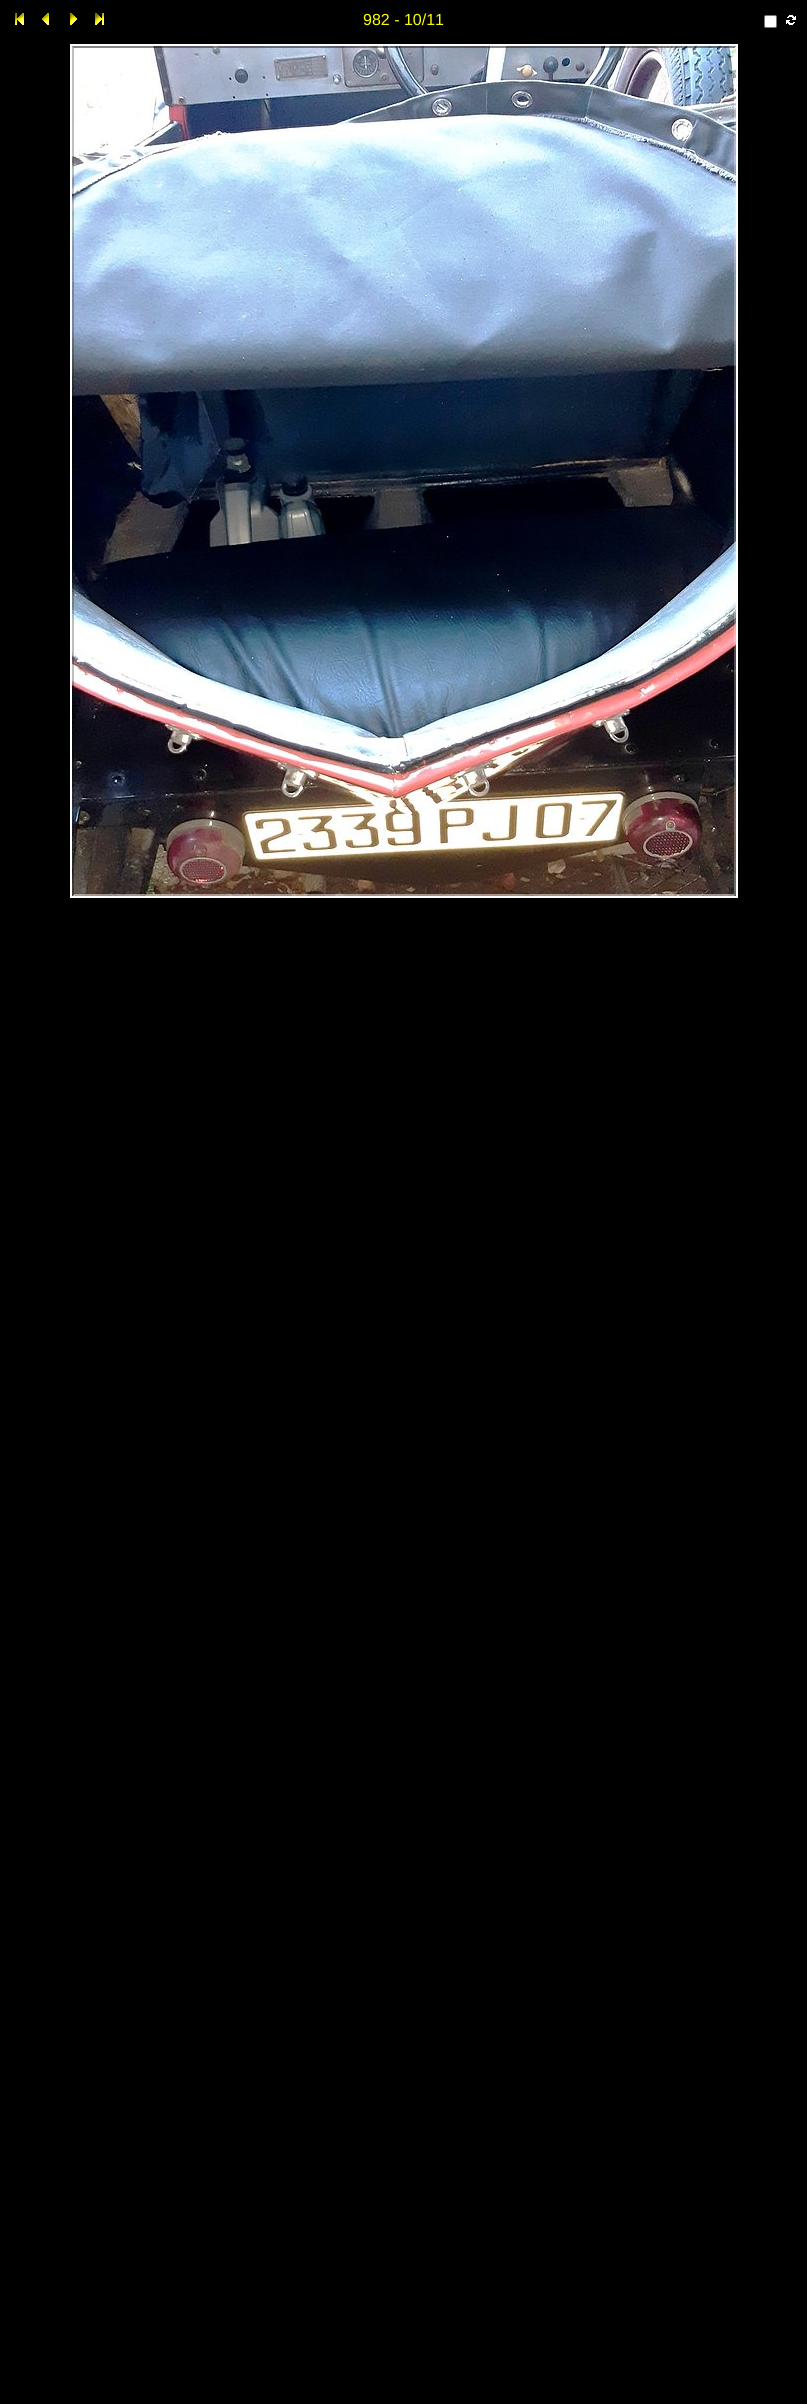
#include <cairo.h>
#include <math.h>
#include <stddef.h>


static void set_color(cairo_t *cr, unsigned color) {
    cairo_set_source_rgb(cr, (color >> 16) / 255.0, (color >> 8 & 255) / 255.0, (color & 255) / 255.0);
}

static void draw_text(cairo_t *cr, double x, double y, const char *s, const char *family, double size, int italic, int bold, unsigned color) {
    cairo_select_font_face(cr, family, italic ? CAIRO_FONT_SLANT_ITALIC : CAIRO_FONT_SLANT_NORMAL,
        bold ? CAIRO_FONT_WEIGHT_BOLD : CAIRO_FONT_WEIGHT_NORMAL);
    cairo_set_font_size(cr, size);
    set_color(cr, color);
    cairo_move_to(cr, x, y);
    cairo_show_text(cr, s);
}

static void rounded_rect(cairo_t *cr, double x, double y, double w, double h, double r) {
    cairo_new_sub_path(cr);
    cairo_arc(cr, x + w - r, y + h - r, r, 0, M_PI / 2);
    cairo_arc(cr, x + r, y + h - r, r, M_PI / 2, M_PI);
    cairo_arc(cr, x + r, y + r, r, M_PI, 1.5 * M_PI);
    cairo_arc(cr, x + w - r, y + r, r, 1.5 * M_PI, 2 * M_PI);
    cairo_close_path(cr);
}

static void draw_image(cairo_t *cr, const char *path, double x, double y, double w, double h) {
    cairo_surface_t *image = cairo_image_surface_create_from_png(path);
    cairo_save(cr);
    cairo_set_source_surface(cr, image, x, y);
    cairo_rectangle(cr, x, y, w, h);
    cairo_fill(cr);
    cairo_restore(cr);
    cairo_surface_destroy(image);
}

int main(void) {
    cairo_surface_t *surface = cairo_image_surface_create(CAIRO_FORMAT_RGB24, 807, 2404);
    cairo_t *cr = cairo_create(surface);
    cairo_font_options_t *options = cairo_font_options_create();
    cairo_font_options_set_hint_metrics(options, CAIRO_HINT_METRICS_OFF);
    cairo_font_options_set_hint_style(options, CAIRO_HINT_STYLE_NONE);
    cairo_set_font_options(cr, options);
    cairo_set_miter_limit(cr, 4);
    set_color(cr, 0x000000);
    cairo_paint(cr);
    draw_image(cr, "assets/img1.png", 15, 13, 9, 12);
    draw_image(cr, "assets/img2.png", 42, 13, 7, 12);
    draw_image(cr, "assets/img3.png", 70, 13, 7, 12);
    draw_image(cr, "assets/img4.png", 95, 13, 9, 12);
    draw_text(cr, 363, 25, "982 - 10/11", "Liberation Sans", 16, 0, 0, 0xFFFF00);
    set_color(cr, 0xFFFFFF);
    rounded_rect(cr, 764.5, 15.5, 12, 12, 1.5);
    cairo_fill_preserve(cr);
    set_color(cr, 0x767676);
    cairo_set_line_width(cr, 1);
    cairo_stroke(cr);
    draw_image(cr, "assets/img5.png", 786, 15, 10, 10);
    draw_image(cr, "assets/img6.png", 70, 44, 668, 854);
    cairo_surface_write_to_png(surface, "output.png");
    cairo_font_options_destroy(options);
    cairo_destroy(cr);
    cairo_surface_destroy(surface);
    return 0;
}
